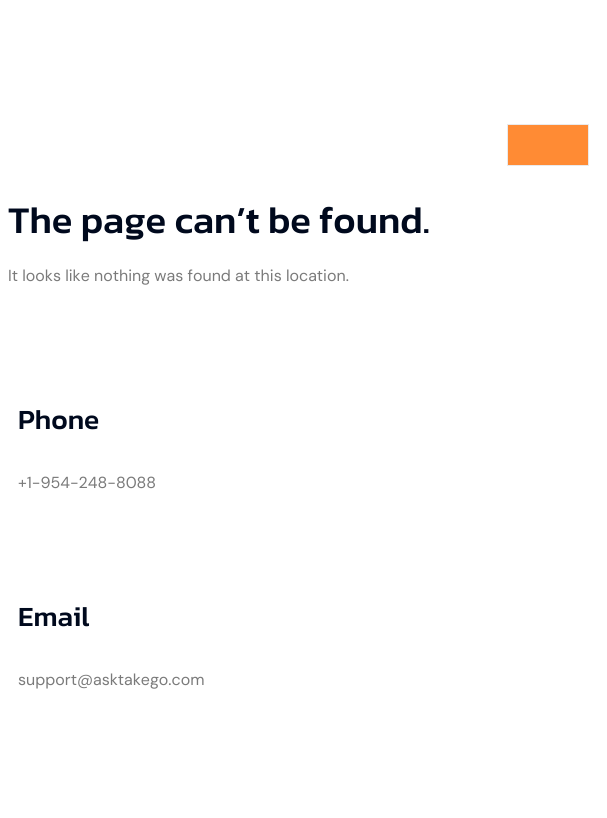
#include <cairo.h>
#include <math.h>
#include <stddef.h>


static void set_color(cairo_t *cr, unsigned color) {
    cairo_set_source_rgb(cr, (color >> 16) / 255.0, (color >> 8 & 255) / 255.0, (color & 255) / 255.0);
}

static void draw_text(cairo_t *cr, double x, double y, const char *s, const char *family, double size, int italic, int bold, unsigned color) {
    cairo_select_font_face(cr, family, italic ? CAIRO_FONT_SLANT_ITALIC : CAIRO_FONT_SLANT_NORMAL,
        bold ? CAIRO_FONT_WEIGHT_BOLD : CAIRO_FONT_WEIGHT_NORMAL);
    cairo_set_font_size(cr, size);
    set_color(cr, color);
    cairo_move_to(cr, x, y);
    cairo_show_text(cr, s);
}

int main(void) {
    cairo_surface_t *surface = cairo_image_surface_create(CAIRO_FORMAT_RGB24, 607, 818);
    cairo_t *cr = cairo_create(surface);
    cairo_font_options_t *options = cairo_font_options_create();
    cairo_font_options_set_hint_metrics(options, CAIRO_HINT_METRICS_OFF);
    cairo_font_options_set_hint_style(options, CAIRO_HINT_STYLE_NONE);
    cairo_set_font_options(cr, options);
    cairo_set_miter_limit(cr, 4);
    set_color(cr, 0xFFFFFF);
    cairo_paint(cr);
    set_color(cr, 0xFF8B34);
    cairo_rectangle(cr, 507.5, 124.5, 81, 41);
    cairo_fill_preserve(cr);
    set_color(cr, 0xEAEAEB);
    cairo_set_line_width(cr, 1);
    cairo_stroke(cr);
    draw_text(cr, 8, 233, "The page can’t be found.", "Kanit Medium", 38, 0, 0, 0x00091D);
    draw_text(cr, 8, 281, "It looks like nothing was found at this location.", "DM Sans", 16, 0, 0, 0x7A7A7A);
    draw_text(cr, 18, 429, "Phone", "Kanit Medium", 28, 0, 0, 0x00091D);
    draw_text(cr, 18, 488, "+1-954-248-8088", "DM Sans", 16, 0, 0, 0x7A7A7A);
    draw_text(cr, 18, 626, "Email", "Kanit Medium", 28, 0, 0, 0x00091D);
    draw_text(cr, 18, 685, "support@asktakego.com", "DM Sans", 16, 0, 0, 0x7A7A7A);
    cairo_surface_write_to_png(surface, "output.png");
    cairo_font_options_destroy(options);
    cairo_destroy(cr);
    cairo_surface_destroy(surface);
    return 0;
}
